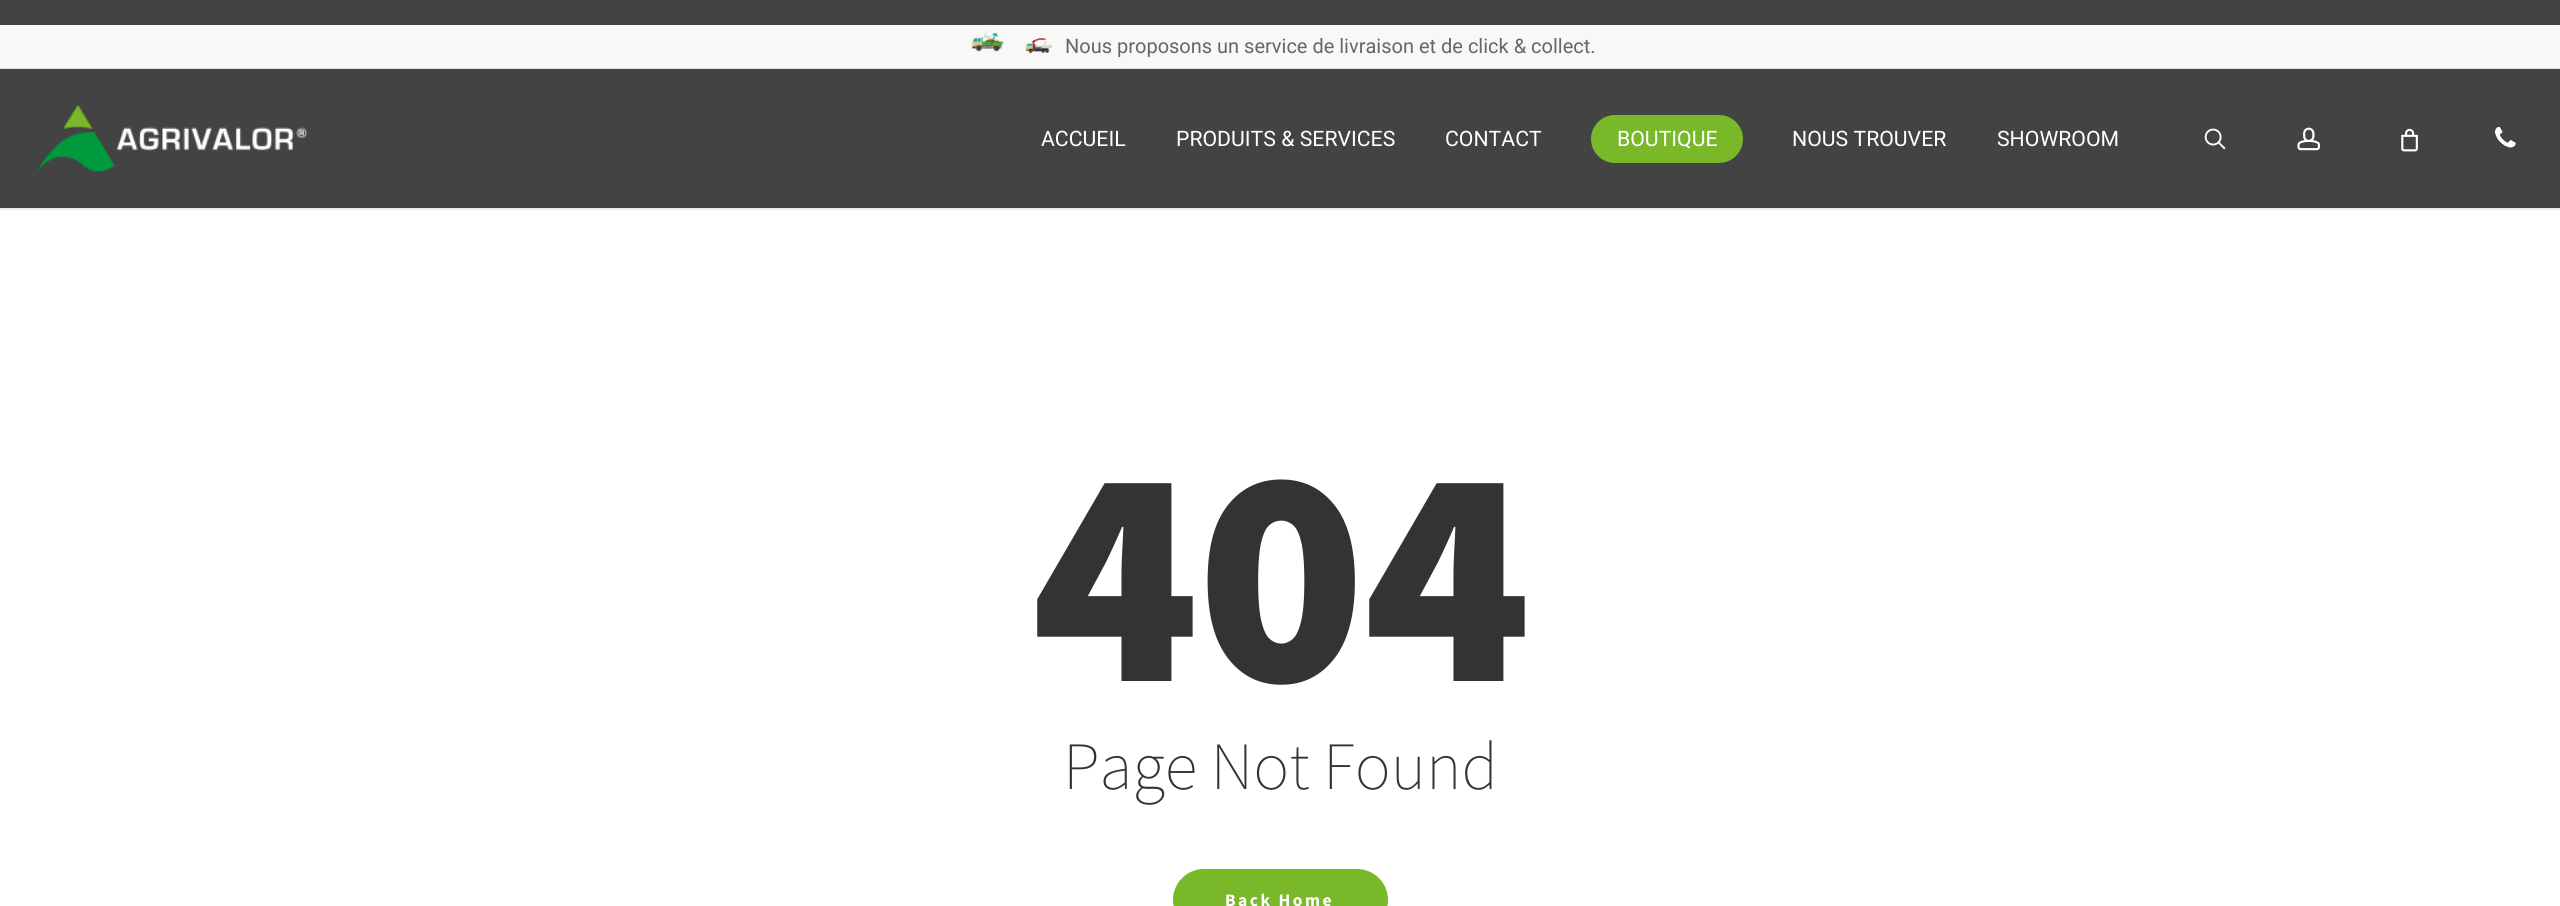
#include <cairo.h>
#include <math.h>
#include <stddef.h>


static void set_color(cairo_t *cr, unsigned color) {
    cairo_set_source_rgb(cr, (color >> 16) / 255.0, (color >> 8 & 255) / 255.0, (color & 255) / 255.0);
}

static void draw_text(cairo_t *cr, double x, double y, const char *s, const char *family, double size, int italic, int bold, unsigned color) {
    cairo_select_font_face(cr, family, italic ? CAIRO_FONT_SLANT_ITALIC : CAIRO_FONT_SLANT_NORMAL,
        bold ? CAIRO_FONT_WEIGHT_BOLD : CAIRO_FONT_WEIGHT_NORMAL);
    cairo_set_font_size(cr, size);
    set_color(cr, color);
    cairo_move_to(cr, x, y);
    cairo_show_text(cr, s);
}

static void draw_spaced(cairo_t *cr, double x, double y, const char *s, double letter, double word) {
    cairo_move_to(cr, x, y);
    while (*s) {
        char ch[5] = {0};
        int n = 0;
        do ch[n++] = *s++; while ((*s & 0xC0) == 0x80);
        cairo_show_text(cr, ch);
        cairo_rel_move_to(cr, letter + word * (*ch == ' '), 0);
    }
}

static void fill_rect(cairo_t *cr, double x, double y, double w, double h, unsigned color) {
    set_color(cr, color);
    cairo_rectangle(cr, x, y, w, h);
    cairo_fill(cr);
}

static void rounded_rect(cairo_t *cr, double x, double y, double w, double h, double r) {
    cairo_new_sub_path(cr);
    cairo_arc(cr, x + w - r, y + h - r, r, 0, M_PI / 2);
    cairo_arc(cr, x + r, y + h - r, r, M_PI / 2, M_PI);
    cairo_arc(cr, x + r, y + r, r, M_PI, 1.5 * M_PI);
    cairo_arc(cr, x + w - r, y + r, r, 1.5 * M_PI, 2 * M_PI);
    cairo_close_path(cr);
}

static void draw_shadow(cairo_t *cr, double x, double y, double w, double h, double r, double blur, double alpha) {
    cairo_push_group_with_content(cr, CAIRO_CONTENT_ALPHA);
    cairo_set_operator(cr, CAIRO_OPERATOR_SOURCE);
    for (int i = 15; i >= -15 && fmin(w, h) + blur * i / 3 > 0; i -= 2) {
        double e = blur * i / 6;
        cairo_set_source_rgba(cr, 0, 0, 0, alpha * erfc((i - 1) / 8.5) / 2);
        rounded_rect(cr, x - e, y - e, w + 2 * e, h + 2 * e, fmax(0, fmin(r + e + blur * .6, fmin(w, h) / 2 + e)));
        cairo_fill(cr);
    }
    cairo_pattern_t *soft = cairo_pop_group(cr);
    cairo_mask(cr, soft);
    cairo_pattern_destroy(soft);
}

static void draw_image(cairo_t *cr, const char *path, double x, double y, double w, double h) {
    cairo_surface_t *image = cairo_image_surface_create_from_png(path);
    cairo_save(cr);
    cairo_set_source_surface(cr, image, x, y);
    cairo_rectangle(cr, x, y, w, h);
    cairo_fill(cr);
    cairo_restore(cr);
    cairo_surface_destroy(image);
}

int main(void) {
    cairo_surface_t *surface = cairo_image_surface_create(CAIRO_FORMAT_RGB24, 2560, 906);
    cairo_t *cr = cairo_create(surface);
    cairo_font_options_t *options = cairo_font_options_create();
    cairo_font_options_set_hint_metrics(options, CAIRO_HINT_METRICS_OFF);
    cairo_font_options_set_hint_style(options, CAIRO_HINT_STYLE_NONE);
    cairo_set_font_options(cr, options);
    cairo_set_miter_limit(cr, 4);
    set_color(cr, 0xFFFFFF);
    cairo_paint(cr);
    cairo_save(cr);
    cairo_set_fill_rule(cr, CAIRO_FILL_RULE_EVEN_ODD);
    cairo_new_path(cr);
    cairo_move_to(cr, 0, 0);
    cairo_line_to(cr, 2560, 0);
    cairo_line_to(cr, 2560, 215);
    cairo_line_to(cr, 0, 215);
    cairo_close_path(cr);
    cairo_move_to(cr, 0, 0);
    cairo_line_to(cr, 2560, 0);
    cairo_line_to(cr, 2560, 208);
    cairo_line_to(cr, 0, 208);
    cairo_close_path(cr);
    cairo_clip(cr);
    set_color(cr, 0x000000);
    draw_shadow(cr, 0, 0, 2560, 208, 0, 2, 0.22);
    cairo_restore(cr);
    cairo_set_source_rgba(cr, 0.2, 0.2, 0.2, 0.92);
    cairo_rectangle(cr, 0, 0, 2560, 208);
    cairo_fill(cr);
    fill_rect(cr, 0, 25, 2560, 43, 0xF8F8F8);
    fill_rect(cr, 0, 68, 2560, 1, 0xDFDFDF);
    draw_image(cr, "assets/img1.png", 971, 30, 33, 22);
    draw_image(cr, "assets/img2.png", 1025, 38, 27, 15);
    draw_text(cr, 1065, 53, "Nous proposons un service de livraison et de click & collect.", "Roboto", 20, 0, 0, 0x666666);
    draw_image(cr, "assets/img3.png", 37, 105, 270, 67);
    draw_text(cr, 1041, 146, "ACCUEIL", "Roboto", 21.25, 0, 0, 0xFFFFFF);
    draw_text(cr, 1176, 146, "PRODUITS & SERVICES", "Roboto", 21.25, 0, 0, 0xFFFFFF);
    draw_text(cr, 1445, 146, "CONTACT", "Roboto", 21.25, 0, 0, 0xFFFFFF);
    set_color(cr, 0x79B829);
    rounded_rect(cr, 1591, 115, 152, 48, 24);
    cairo_fill(cr);
    draw_text(cr, 1617, 146, "BOUTIQUE", "Roboto", 21.25, 0, 0, 0xFFFFFF);
    draw_text(cr, 1792, 146, "NOUS TROUVER", "Roboto", 21.25, 0, 0, 0xFFFFFF);
    draw_text(cr, 1997, 146, "SHOWROOM", "Roboto", 21.25, 0, 0, 0xFFFFFF);
    fill_rect(cr, 2171, 69, 1, 139, 0x3F3F3F);
    draw_image(cr, "assets/img4.png", 2204, 128, 22, 22);
    fill_rect(cr, 2265, 69, 1, 139, 0x3F3F3F);
    draw_image(cr, "assets/img5.png", 2297, 127, 23, 24);
    fill_rect(cr, 2359, 69, 1, 139, 0x3F3F3F);
    draw_image(cr, "assets/img6.png", 2401, 128, 17, 24);
    fill_rect(cr, 2459, 69, 1, 139, 0x3F3F3F);
    draw_image(cr, "assets/img7.png", 2495, 126, 21, 22);
    cairo_select_font_face(cr, "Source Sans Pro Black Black", CAIRO_FONT_SLANT_NORMAL, CAIRO_FONT_WEIGHT_NORMAL);
    cairo_set_font_size(cr, 312);
    set_color(cr, 0x333333);
    draw_spaced(cr, 1031, 681, "404", -2.5, 0);
    draw_text(cr, 1063, 789, "Page Not Found", "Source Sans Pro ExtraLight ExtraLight", 67.5, 0, 0, 0x333333);
    set_color(cr, 0x79B829);
    rounded_rect(cr, 1173, 869, 215, 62, 31);
    cairo_fill(cr);
    cairo_select_font_face(cr, "Source Sans Pro", CAIRO_FONT_SLANT_NORMAL, CAIRO_FONT_WEIGHT_BOLD);
    cairo_set_font_size(cr, 17.5);
    set_color(cr, 0xFFFFFF);
    draw_spaced(cr, 1225, 906, "Back Home", 2.5, 0);
    cairo_surface_write_to_png(surface, "output.png");
    cairo_font_options_destroy(options);
    cairo_destroy(cr);
    cairo_surface_destroy(surface);
    return 0;
}
